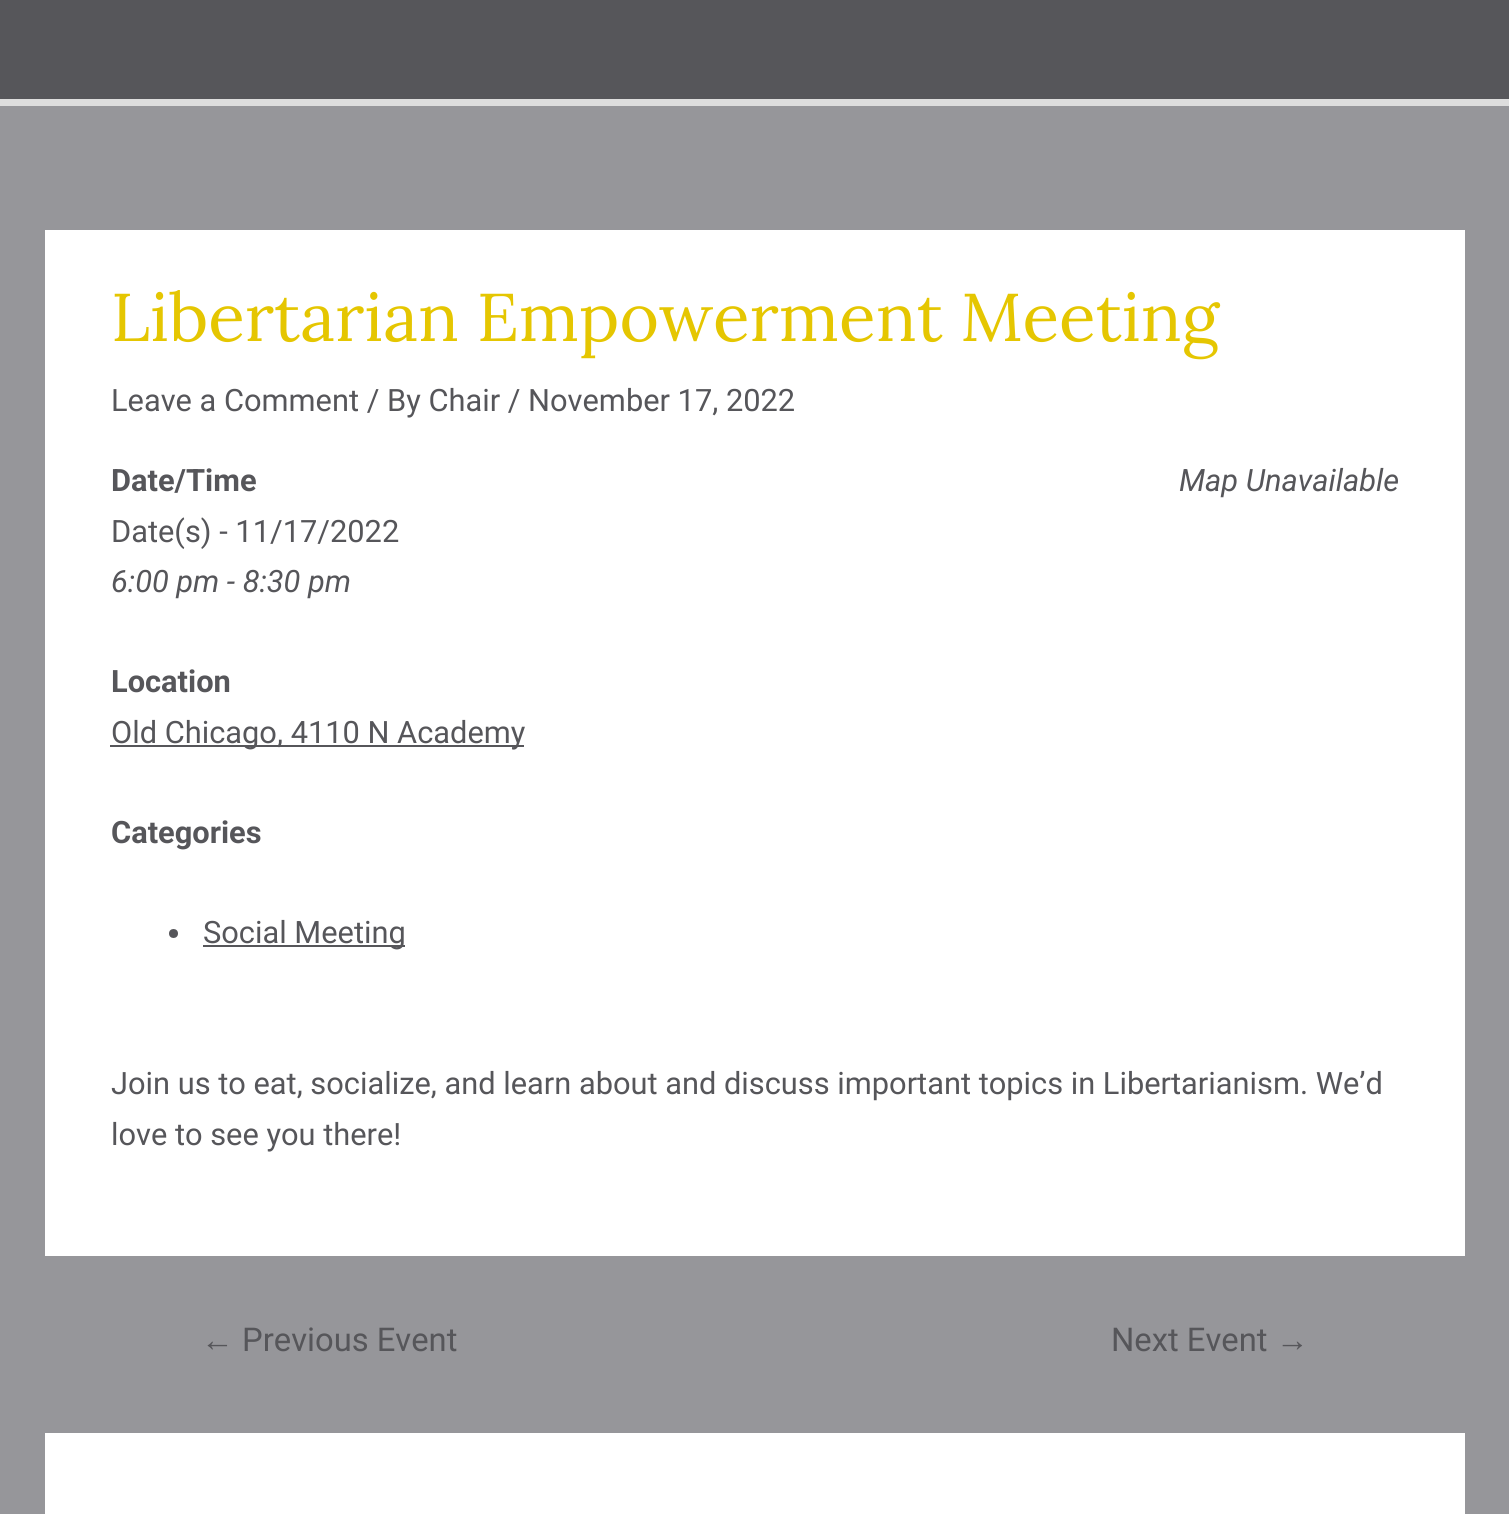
#include <cairo.h>
#include <math.h>
#include <stddef.h>


static void set_color(cairo_t *cr, unsigned color) {
    cairo_set_source_rgb(cr, (color >> 16) / 255.0, (color >> 8 & 255) / 255.0, (color & 255) / 255.0);
}

static void draw_text(cairo_t *cr, double x, double y, const char *s, const char *family, double size, int italic, int bold, unsigned color) {
    cairo_select_font_face(cr, family, italic ? CAIRO_FONT_SLANT_ITALIC : CAIRO_FONT_SLANT_NORMAL,
        bold ? CAIRO_FONT_WEIGHT_BOLD : CAIRO_FONT_WEIGHT_NORMAL);
    cairo_set_font_size(cr, size);
    set_color(cr, color);
    cairo_move_to(cr, x, y);
    cairo_show_text(cr, s);
}

static void fill_rect(cairo_t *cr, double x, double y, double w, double h, unsigned color) {
    set_color(cr, color);
    cairo_rectangle(cr, x, y, w, h);
    cairo_fill(cr);
}

int main(void) {
    cairo_surface_t *surface = cairo_image_surface_create(CAIRO_FORMAT_RGB24, 1509, 1514);
    cairo_t *cr = cairo_create(surface);
    cairo_font_options_t *options = cairo_font_options_create();
    cairo_font_options_set_hint_metrics(options, CAIRO_HINT_METRICS_OFF);
    cairo_font_options_set_hint_style(options, CAIRO_HINT_STYLE_NONE);
    cairo_set_font_options(cr, options);
    cairo_set_miter_limit(cr, 4);
    set_color(cr, 0x96969A);
    cairo_paint(cr);
    fill_rect(cr, 0, 0, 1509, 99, 0x56565A);
    fill_rect(cr, 0, 99, 1509, 7, 0xDDDDDD);
    fill_rect(cr, 45, 230, 1420, 1026, 0xFFFFFF);
    draw_text(cr, 111, 341, "Libertarian Empowerment Meeting", "Lora", 67.5, 0, 0, 0xE5C601);
    draw_text(cr, 111, 411, "Leave a Comment / By Chair / November 17, 2022", "Roboto", 30.8, 0, 0, 0x56565A);
    draw_text(cr, 111, 491, "Date/Time", "Roboto", 30.8, 0, 1, 0x56565A);
    draw_text(cr, 111, 542, "Date(s) - 11/17/2022", "Roboto", 30.8, 0, 0, 0x56565A);
    draw_text(cr, 111, 592, "6:00 pm - 8:30 pm", "Roboto", 30.8, 1, 0, 0x56565A);
    draw_text(cr, 1179, 491, "Map Unavailable", "Roboto", 30.8, 1, 0, 0x56565A);
    draw_text(cr, 111, 692, "Location", "Roboto", 30.8, 0, 1, 0x56565A);
    fill_rect(cr, 110, 745, 414, 2, 0x56565A);
    draw_text(cr, 111, 743, "Old Chicago, 4110 N Academy", "Roboto", 30.8, 0, 0, 0x56565A);
    draw_text(cr, 111, 843, "Categories", "Roboto", 30.8, 0, 1, 0x56565A);
    cairo_new_path(cr);
    cairo_arc(cr, 173.5, 933.5, 4.5, 0, 2 * M_PI);
    cairo_fill(cr);
    fill_rect(cr, 203, 945, 202, 2, 0x56565A);
    draw_text(cr, 203, 943, "Social Meeting", "Roboto", 30.8, 0, 0, 0x56565A);
    draw_text(cr, 111, 1094, "Join us to eat, socialize, and learn about and discuss important topics in Libertarianism. We’d", "Roboto", 30.8, 0, 0, 0x56565A);
    draw_text(cr, 111, 1145, "love to see you there!", "Roboto", 30.8, 0, 0, 0x56565A);
    draw_text(cr, 201, 1351, "←", "Liberation Sans", 32.75, 0, 0, 0x56565A);
    draw_text(cr, 242, 1351, "Previous Event", "Roboto", 32.75, 0, 0, 0x56565A);
    draw_text(cr, 1111, 1351, "Next Event", "Roboto", 32.75, 0, 0, 0x56565A);
    draw_text(cr, 1276, 1351, "→", "Liberation Sans", 32.75, 0, 0, 0x56565A);
    fill_rect(cr, 45, 1433, 1420, 81, 0xFFFFFF);
    cairo_surface_write_to_png(surface, "output.png");
    cairo_font_options_destroy(options);
    cairo_destroy(cr);
    cairo_surface_destroy(surface);
    return 0;
}
